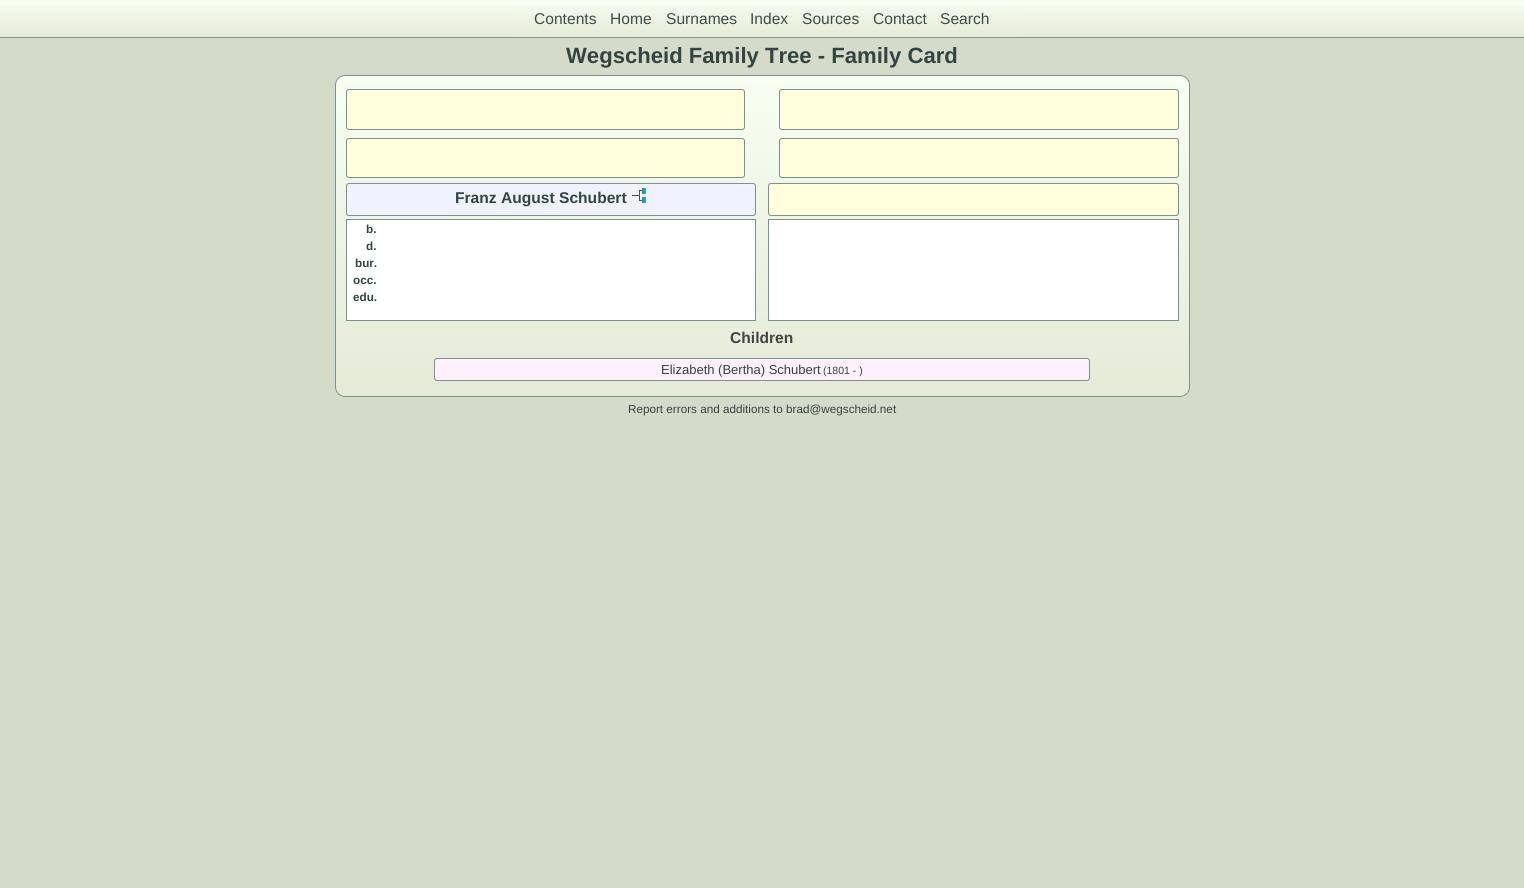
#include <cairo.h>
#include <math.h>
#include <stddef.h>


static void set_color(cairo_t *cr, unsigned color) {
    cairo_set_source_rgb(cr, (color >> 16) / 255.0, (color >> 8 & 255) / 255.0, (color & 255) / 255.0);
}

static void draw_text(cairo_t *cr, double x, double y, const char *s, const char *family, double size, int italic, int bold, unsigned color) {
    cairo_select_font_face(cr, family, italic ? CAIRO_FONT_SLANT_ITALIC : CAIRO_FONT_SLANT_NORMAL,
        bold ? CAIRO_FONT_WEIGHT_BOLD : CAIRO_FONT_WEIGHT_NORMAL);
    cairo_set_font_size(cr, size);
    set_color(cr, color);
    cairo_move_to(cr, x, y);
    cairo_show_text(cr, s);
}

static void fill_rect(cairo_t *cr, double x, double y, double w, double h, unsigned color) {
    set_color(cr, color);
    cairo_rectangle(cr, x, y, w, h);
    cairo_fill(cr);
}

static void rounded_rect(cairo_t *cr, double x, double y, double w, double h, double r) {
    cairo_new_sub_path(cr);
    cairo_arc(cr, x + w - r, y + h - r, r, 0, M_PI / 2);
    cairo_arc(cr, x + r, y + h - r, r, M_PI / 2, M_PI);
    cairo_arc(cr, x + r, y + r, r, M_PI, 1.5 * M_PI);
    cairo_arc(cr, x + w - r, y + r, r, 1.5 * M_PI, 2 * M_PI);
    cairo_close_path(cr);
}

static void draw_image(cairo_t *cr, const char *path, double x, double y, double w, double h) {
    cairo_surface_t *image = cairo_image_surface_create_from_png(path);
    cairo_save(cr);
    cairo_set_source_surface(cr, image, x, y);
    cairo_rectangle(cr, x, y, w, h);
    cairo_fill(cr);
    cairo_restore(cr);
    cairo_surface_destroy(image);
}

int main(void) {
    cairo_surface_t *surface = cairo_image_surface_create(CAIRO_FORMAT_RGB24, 1524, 888);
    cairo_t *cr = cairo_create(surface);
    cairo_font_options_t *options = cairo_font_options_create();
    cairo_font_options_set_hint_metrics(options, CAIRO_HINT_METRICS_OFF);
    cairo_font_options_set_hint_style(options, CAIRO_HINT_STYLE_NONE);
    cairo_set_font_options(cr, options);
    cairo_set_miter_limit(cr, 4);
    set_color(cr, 0xD5DBC9);
    cairo_paint(cr);
    fill_rect(cr, 0, 37, 1524, 1, 0x7F9594);
    fill_rect(cr, 0, 0, 1524, 37, 0xF6FDF0);
    draw_image(cr, "assets/img1.png", 0, 6, 1524, 31);
    draw_text(cr, 534, 24, "Contents", "Liberation Sans", 15.6, 0, 0, 0x3B4C4B);
    draw_text(cr, 610, 24, "Home", "Liberation Sans", 15.6, 0, 0, 0x3B4C4B);
    draw_text(cr, 666, 24, "Surnames", "Liberation Sans", 15.6, 0, 0, 0x3B4C4B);
    draw_text(cr, 750, 24, "Index", "Liberation Sans", 15.6, 0, 0, 0x3B4C4B);
    draw_text(cr, 802, 24, "Sources", "Liberation Sans", 15.6, 0, 0, 0x3B4C4B);
    draw_text(cr, 873, 24, "Contact", "Liberation Sans", 15.6, 0, 0, 0x3B4C4B);
    draw_text(cr, 940, 24, "Search", "Liberation Sans", 15.6, 0, 0, 0x3B4C4B);
    draw_text(cr, 566, 63, "Wegscheid Family Tree - Family Card", "Liberation Sans", 22.1, 0, 1, 0x334444);
    set_color(cr, 0xF8FFF2);
    rounded_rect(cr, 335, 75, 855, 322, 10);
    cairo_fill(cr);
    draw_image(cr, "assets/img2.png", 335, 75, 855, 321);
    rounded_rect(cr, 335.5, 75.5, 854, 321, 9.5);
    set_color(cr, 0x7A9191);
    cairo_set_line_width(cr, 1);
    cairo_stroke(cr);
    set_color(cr, 0xFFFFDD);
    rounded_rect(cr, 346.5, 89.5, 398, 40, 2.5);
    cairo_fill_preserve(cr);
    set_color(cr, 0x7A9191);
    cairo_stroke(cr);
    set_color(cr, 0xFFFFDD);
    rounded_rect(cr, 779.5, 89.5, 399, 40, 2.5);
    cairo_fill_preserve(cr);
    set_color(cr, 0x7A9191);
    cairo_stroke(cr);
    set_color(cr, 0xFFFFDD);
    rounded_rect(cr, 346.5, 138.5, 398, 39, 2.5);
    cairo_fill_preserve(cr);
    set_color(cr, 0x7A9191);
    cairo_stroke(cr);
    set_color(cr, 0xFFFFDD);
    rounded_rect(cr, 779.5, 138.5, 399, 39, 2.5);
    cairo_fill_preserve(cr);
    set_color(cr, 0x7A9191);
    cairo_stroke(cr);
    set_color(cr, 0xF0F2FF);
    rounded_rect(cr, 346.5, 183.5, 409, 32, 2.5);
    cairo_fill_preserve(cr);
    set_color(cr, 0x7A9191);
    cairo_stroke(cr);
    draw_text(cr, 455, 203, "Franz August Schubert", "Liberation Sans", 15.6, 0, 1, 0x334444);
    draw_image(cr, "assets/img3.png", 632, 188, 14, 15);
    set_color(cr, 0xFFFFDD);
    rounded_rect(cr, 768.5, 183.5, 410, 32, 2.5);
    cairo_fill_preserve(cr);
    set_color(cr, 0x7A9191);
    cairo_stroke(cr);
    set_color(cr, 0xFFFFFF);
    cairo_rectangle(cr, 346.5, 219.5, 409, 101);
    cairo_fill_preserve(cr);
    set_color(cr, 0x7A9191);
    cairo_stroke(cr);
    draw_text(cr, 366, 233, "b.", "Liberation Sans", 11.7, 0, 1, 0x334444);
    draw_text(cr, 366, 250, "d.", "Liberation Sans", 11.7, 0, 1, 0x334444);
    draw_text(cr, 355, 267, "bur.", "Liberation Sans", 11.7, 0, 1, 0x334444);
    draw_text(cr, 353, 284, "occ.", "Liberation Sans", 11.7, 0, 1, 0x334444);
    draw_text(cr, 353, 301, "edu.", "Liberation Sans", 11.7, 0, 1, 0x334444);
    set_color(cr, 0xFFFFFF);
    cairo_rectangle(cr, 768.5, 219.5, 410, 101);
    cairo_fill_preserve(cr);
    set_color(cr, 0x7A9191);
    cairo_stroke(cr);
    draw_text(cr, 730, 343, "Children", "Liberation Sans", 15.6, 0, 1, 0x444444);
    set_color(cr, 0xFFF0FB);
    rounded_rect(cr, 434.5, 358.5, 655, 22, 2.5);
    cairo_fill_preserve(cr);
    set_color(cr, 0x7A9191);
    cairo_stroke(cr);
    draw_text(cr, 661, 374, "Elizabeth (Bertha) Schubert", "Liberation Sans", 13, 0, 0, 0x334444);
    draw_text(cr, 823, 374, "(1801 - )", "Liberation Sans", 10.5, 0, 0, 0x334444);
    draw_text(cr, 628, 413, "Report errors and additions to brad@wegscheid.net", "Liberation Sans", 11.7, 0, 0, 0x334444);
    cairo_surface_write_to_png(surface, "output.png");
    cairo_font_options_destroy(options);
    cairo_destroy(cr);
    cairo_surface_destroy(surface);
    return 0;
}
